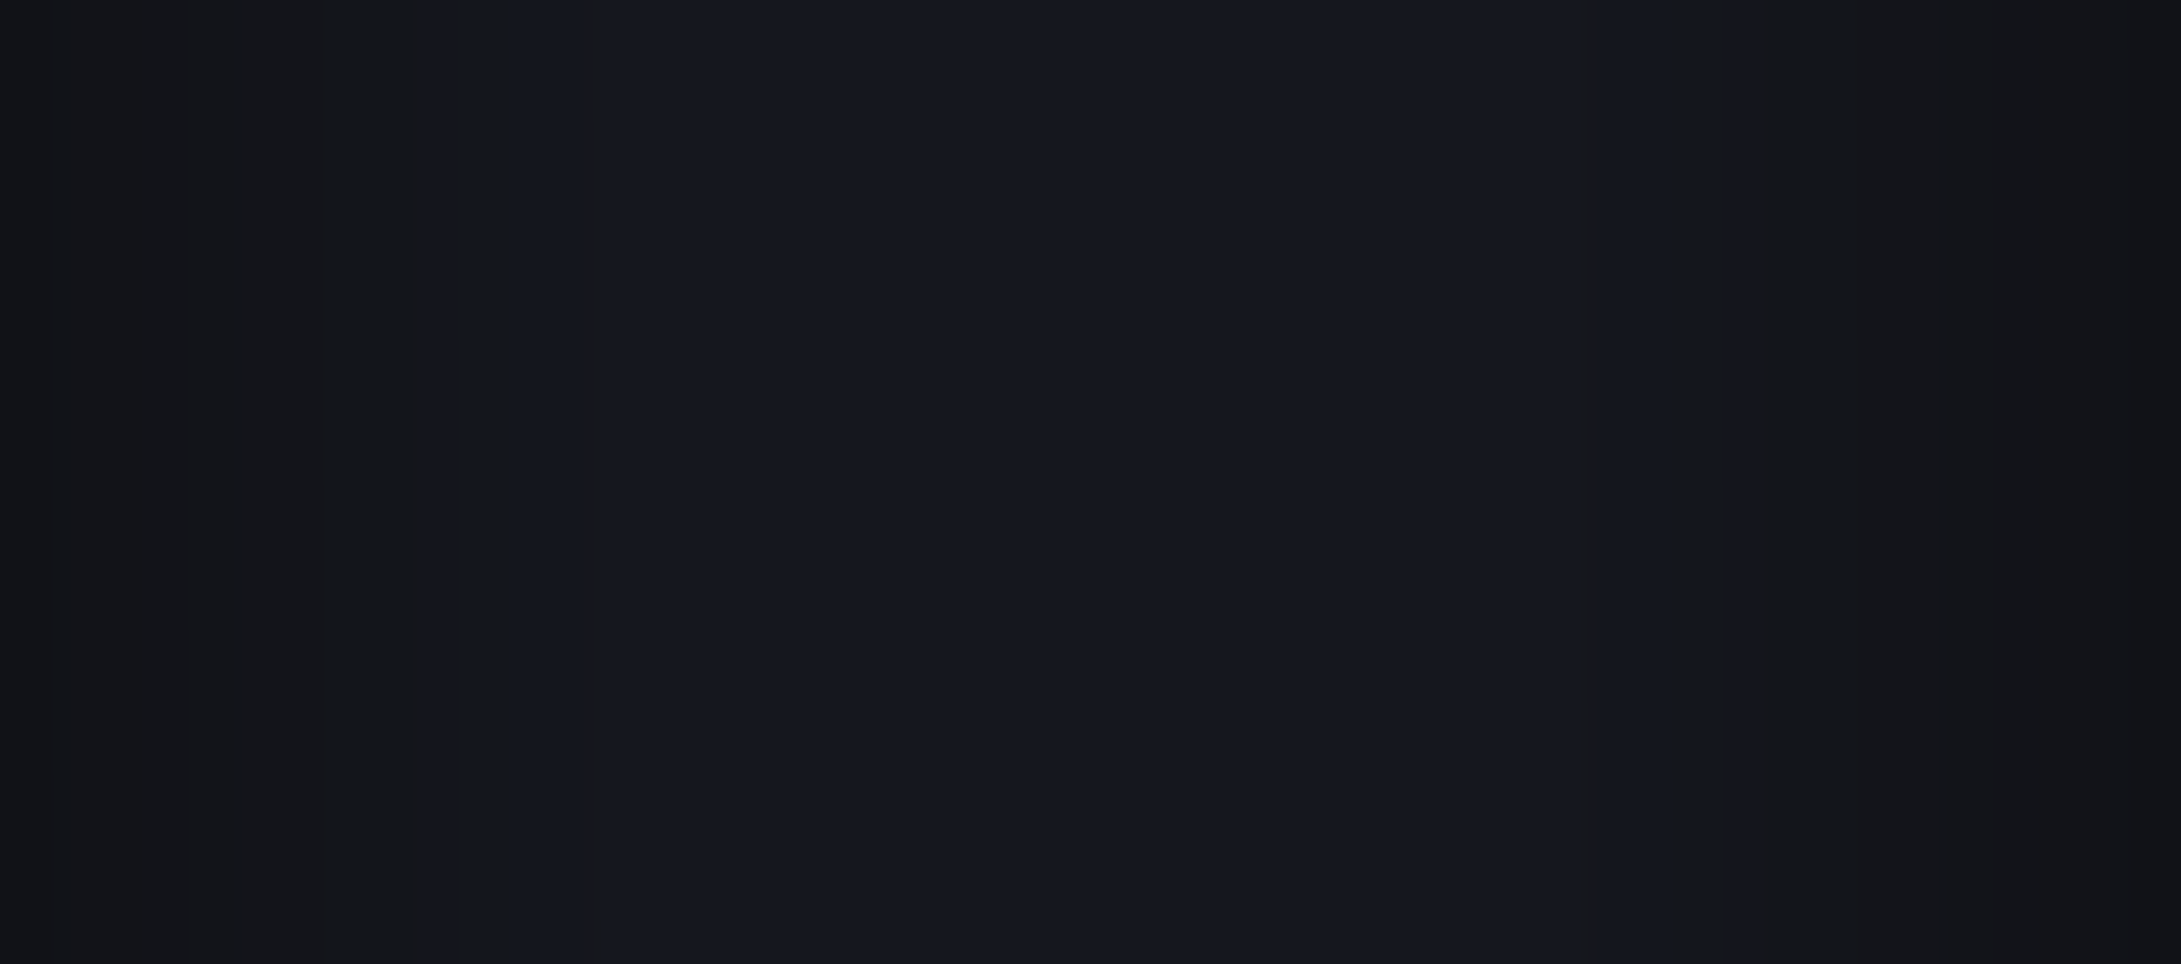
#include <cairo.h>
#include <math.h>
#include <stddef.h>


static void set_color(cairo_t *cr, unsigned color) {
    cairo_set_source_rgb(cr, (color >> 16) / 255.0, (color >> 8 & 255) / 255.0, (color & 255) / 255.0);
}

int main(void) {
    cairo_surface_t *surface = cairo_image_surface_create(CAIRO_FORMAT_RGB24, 2181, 964);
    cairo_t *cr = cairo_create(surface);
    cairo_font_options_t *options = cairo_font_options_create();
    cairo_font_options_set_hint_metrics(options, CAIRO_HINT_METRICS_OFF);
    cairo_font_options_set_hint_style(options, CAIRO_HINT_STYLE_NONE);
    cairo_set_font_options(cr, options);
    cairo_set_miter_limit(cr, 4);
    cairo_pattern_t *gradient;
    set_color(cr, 0xFFFFFF);
    cairo_paint(cr);
    gradient = cairo_pattern_create_linear(0, 483, 2181, 482);
    cairo_pattern_add_color_stop_rgba(gradient, 0, 0.067, 0.071, 0.09, 1);
    cairo_pattern_add_color_stop_rgba(gradient, 0.3, 0.082, 0.09, 0.118, 1);
    cairo_pattern_add_color_stop_rgba(gradient, 0.7, 0.082, 0.09, 0.118, 1);
    cairo_pattern_add_color_stop_rgba(gradient, 1, 0.067, 0.071, 0.09, 1);
    cairo_set_source(cr, gradient);
    cairo_pattern_destroy(gradient);
    cairo_rectangle(cr, 0, 0, 2181, 964);
    cairo_fill(cr);
    cairo_surface_write_to_png(surface, "output.png");
    cairo_font_options_destroy(options);
    cairo_destroy(cr);
    cairo_surface_destroy(surface);
    return 0;
}
